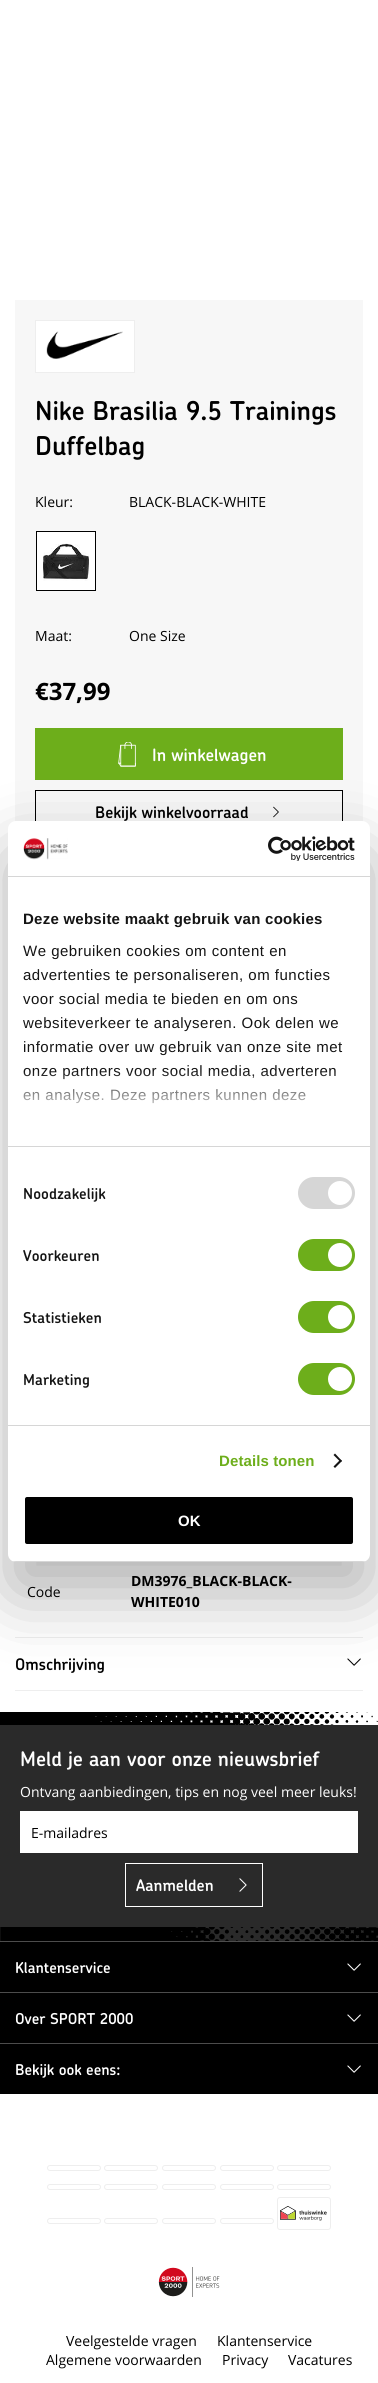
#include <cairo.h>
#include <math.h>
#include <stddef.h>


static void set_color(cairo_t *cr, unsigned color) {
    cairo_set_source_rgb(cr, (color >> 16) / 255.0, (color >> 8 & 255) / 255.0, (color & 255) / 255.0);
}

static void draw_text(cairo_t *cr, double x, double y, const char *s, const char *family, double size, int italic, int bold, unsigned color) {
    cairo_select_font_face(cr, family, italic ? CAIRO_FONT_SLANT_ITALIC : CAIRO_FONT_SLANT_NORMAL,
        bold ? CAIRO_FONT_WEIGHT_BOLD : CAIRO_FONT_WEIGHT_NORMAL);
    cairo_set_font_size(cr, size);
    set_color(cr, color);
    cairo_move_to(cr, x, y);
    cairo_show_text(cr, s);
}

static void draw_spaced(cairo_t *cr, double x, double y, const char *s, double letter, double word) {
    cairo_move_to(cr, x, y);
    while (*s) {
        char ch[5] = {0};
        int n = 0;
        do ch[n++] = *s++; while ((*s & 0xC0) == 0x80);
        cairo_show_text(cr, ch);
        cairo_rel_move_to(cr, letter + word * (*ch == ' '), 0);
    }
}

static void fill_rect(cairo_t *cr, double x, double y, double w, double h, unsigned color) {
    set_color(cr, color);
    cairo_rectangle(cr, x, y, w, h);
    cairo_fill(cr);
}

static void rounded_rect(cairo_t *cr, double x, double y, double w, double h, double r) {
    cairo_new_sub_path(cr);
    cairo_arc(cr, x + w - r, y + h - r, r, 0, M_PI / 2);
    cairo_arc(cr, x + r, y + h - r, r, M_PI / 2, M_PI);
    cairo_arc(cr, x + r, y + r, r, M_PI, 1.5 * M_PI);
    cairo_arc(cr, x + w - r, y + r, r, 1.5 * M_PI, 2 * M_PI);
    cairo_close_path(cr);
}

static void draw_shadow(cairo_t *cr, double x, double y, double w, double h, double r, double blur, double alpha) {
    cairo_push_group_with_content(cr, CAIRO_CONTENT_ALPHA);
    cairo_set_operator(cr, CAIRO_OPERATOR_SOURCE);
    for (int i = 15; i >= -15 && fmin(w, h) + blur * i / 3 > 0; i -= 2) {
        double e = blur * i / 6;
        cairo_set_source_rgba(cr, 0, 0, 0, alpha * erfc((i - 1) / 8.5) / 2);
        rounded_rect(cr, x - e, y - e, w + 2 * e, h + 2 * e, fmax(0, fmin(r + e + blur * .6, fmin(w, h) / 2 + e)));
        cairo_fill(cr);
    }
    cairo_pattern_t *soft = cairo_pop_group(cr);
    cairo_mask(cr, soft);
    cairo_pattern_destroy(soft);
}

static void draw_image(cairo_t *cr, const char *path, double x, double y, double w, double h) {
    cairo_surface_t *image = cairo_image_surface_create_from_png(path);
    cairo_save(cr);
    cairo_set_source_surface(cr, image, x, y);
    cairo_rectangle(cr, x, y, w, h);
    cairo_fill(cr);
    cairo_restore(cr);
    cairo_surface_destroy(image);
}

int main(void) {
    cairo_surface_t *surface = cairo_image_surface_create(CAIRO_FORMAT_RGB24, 378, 2383);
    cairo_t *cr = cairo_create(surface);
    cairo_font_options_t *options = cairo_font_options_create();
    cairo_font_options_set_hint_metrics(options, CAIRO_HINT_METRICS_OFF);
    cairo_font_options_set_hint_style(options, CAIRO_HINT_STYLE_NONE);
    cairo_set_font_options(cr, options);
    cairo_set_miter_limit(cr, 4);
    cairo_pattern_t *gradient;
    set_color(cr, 0xFFFFFF);
    cairo_paint(cr);
    fill_rect(cr, 15, 300, 348, 522, 0xF7F7F7);
    set_color(cr, 0xFFFFFF);
    cairo_rectangle(cr, 35.5, 320.5, 99, 52);
    cairo_fill_preserve(cr);
    set_color(cr, 0xEEEEEE);
    cairo_set_line_width(cr, 1);
    cairo_stroke(cr);
    draw_image(cr, "assets/img1.png", 46, 331, 77, 28);
    draw_text(cr, 35, 420, "Nike Brasilia 9.5 Trainings", "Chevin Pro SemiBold", 26, 0, 0, 0x000000);
    draw_text(cr, 35, 455, "Duffelbag", "Chevin Pro SemiBold", 26, 0, 0, 0x000000);
    draw_text(cr, 35, 507, "Kleur:", "Open Sans", 14, 0, 0, 0x000000);
    draw_text(cr, 129, 507, "BLACK-BLACK-WHITE", "Open Sans", 14, 0, 0, 0x000000);
    set_color(cr, 0xFFFFFF);
    cairo_rectangle(cr, 36.5, 531.5, 59, 59);
    cairo_fill_preserve(cr);
    set_color(cr, 0x000000);
    cairo_stroke(cr);
    draw_image(cr, "assets/img2.png", 43, 543, 46, 38);
    draw_text(cr, 35, 641, "Maat:", "Open Sans", 14, 0, 0, 0x000000);
    draw_text(cr, 129, 641, "One Size", "Open Sans", 14, 0, 0, 0x000000);
    draw_text(cr, 35, 700, "€37,99", "Open Sans", 24, 0, 1, 0x000000);
    fill_rect(cr, 35, 728, 308, 52, 0x6DAE1B);
    draw_image(cr, "assets/img3.png", 118, 742, 18, 25);
    draw_text(cr, 152, 761, "In winkelwagen", "Chevin Pro SemiBold", 17, 0, 0, 0xFFFFFF);
    cairo_rectangle(cr, 35.5, 790.5, 307, 43);
    set_color(cr, 0x000000);
    cairo_stroke(cr);
    draw_text(cr, 95, 818, "Bekijk winkelvoorraad", "Chevin Pro SemiBold", 16, 0, 0, 0x000000);
    draw_image(cr, "assets/img4.png", 273, 806, 6, 12);
    fill_rect(cr, 15, 1690, 348, 1, 0xEEEEEE);
    draw_text(cr, 27, 1597, "Code", "Open Sans", 14, 0, 0, 0x000000);
    draw_text(cr, 131, 1586, "DM3976_BLACK-BLACK-", "Open Sans", 14, 0, 1, 0x000000);
    draw_text(cr, 131, 1607, "WHITE010", "Open Sans", 14, 0, 1, 0x000000);
    fill_rect(cr, 15, 1637, 348, 1, 0xEEEEEE);
    draw_text(cr, 15, 1670, "Omschrijving", "Chevin Pro SemiBold", 16, 0, 0, 0x000000);
    draw_image(cr, "assets/img5.png", 347, 1658, 14, 8);
    draw_image(cr, "assets/img6.png", 0, 1712, 378, 13);
    fill_rect(cr, 0, 1725, 378, 216, 0x2A2A2A);
    draw_text(cr, 20, 1766, "Meld je aan voor onze nieuwsbrief", "Chevin Pro SemiBold", 20, 0, 0, 0xFFFFFF);
    draw_text(cr, 20, 1797, "Ontvang aanbiedingen, tips en nog veel meer leuks!", "Open Sans", 14, 0, 0, 0xFFFFFF);
    fill_rect(cr, 20, 1811, 338, 42, 0xFFFFFF);
    draw_text(cr, 31, 1838, "E-mailadres", "Open Sans", 14, 0, 0, 0x000000);
    cairo_rectangle(cr, 125.5, 1863.5, 137, 43);
    set_color(cr, 0xFFFFFF);
    cairo_stroke(cr);
    draw_text(cr, 136, 1891, "Aanmelden", "Chevin Pro SemiBold", 16, 0, 0, 0xFFFFFF);
    draw_image(cr, "assets/img7.png", 239, 1878, 8, 14);
    draw_image(cr, "assets/img8.png", 0, 1927, 378, 14);
    fill_rect(cr, 0, 1942, 378, 152, 0x000000);
    fill_rect(cr, 0, 1941, 378, 1, 0x4C4C4C);
    draw_text(cr, 15, 1973, "Klantenservice", "Chevin Pro SemiBold", 15, 0, 0, 0xFFFFFF);
    draw_image(cr, "assets/img9.png", 347, 1963, 14, 8);
    fill_rect(cr, 0, 1992, 378, 1, 0x4C4C4C);
    draw_text(cr, 15, 2024, "Over SPORT 2000", "Chevin Pro SemiBold", 15, 0, 0, 0xFFFFFF);
    draw_image(cr, "assets/img9.png", 347, 2014, 14, 8);
    fill_rect(cr, 0, 2043, 378, 1, 0x4C4C4C);
    draw_text(cr, 15, 2075, "Bekijk ook eens:", "Chevin Pro SemiBold", 15, 0, 0, 0xFFFFFF);
    draw_image(cr, "assets/img9.png", 347, 2065, 14, 8);
    rounded_rect(cr, 47.5, 2165.5, 53, 5, 2.5);
    set_color(cr, 0xEEEEEE);
    cairo_stroke(cr);
    rounded_rect(cr, 104.5, 2165.5, 53, 5, 2.5);
    cairo_stroke(cr);
    rounded_rect(cr, 162.5, 2165.5, 53, 5, 2.5);
    cairo_stroke(cr);
    rounded_rect(cr, 220.5, 2165.5, 53, 5, 2.5);
    cairo_stroke(cr);
    rounded_rect(cr, 277.5, 2165.5, 53, 5, 2.5);
    cairo_stroke(cr);
    rounded_rect(cr, 47.5, 2184.5, 53, 5, 2.5);
    cairo_stroke(cr);
    rounded_rect(cr, 104.5, 2184.5, 53, 5, 2.5);
    cairo_stroke(cr);
    rounded_rect(cr, 162.5, 2184.5, 53, 5, 2.5);
    cairo_stroke(cr);
    rounded_rect(cr, 220.5, 2184.5, 53, 5, 2.5);
    cairo_stroke(cr);
    rounded_rect(cr, 277.5, 2184.5, 53, 5, 2.5);
    cairo_stroke(cr);
    rounded_rect(cr, 47.5, 2218.5, 53, 5, 2.5);
    cairo_stroke(cr);
    rounded_rect(cr, 104.5, 2218.5, 53, 5, 2.5);
    cairo_stroke(cr);
    rounded_rect(cr, 162.5, 2218.5, 53, 5, 2.5);
    cairo_stroke(cr);
    rounded_rect(cr, 220.5, 2218.5, 53, 5, 2.5);
    cairo_stroke(cr);
    rounded_rect(cr, 277.5, 2197.5, 53, 32, 2.5);
    cairo_stroke(cr);
    draw_image(cr, "assets/img10.png", 280, 2206, 47, 15);
    draw_image(cr, "assets/img11.png", 158, 2267, 62, 30);
    draw_text(cr, 66, 2346, "Veelgestelde vragen", "Open Sans", 14, 0, 0, 0x000000);
    draw_text(cr, 217, 2346, "Klantenservice", "Open Sans", 14, 0, 0, 0x000000);
    draw_text(cr, 46, 2365, "Algemene voorwaarden", "Open Sans", 14, 0, 0, 0x000000);
    draw_text(cr, 222, 2365, "Privacy", "Open Sans", 14, 0, 0, 0x000000);
    draw_text(cr, 288, 2365, "Vacatures", "Open Sans", 14, 0, 0, 0x000000);
    set_color(cr, 0x000000);
    draw_shadow(cr, 8, 853, 362, 741, 8, 34, 0.3);
    set_color(cr, 0xFFFFFF);
    rounded_rect(cr, 8, 821, 362, 741, 8);
    cairo_fill(cr);
    fill_rect(cr, 8, 876, 362, 1, 0xD6D6D6);
    draw_image(cr, "assets/img12.png", 23, 838, 45, 22);
    draw_image(cr, "assets/img13.png", 268, 836, 87, 25);
    fill_rect(cr, 8, 1146, 362, 1, 0xD6D6D6);
    cairo_select_font_face(cr, "Liberation Sans", CAIRO_FONT_SLANT_NORMAL, CAIRO_FONT_WEIGHT_BOLD);
    cairo_set_font_size(cr, 15);
    set_color(cr, 0x141414);
    draw_spaced(cr, 23, 924, "Deze website maakt gebruik van cookies", 0.25, 0);
    cairo_select_font_face(cr, "Liberation Sans", CAIRO_FONT_SLANT_NORMAL, CAIRO_FONT_WEIGHT_NORMAL);
    draw_spaced(cr, 23, 956, "We gebruiken cookies om content en", 0.5, 0);
    draw_spaced(cr, 23, 980, "advertenties te personaliseren, om functies", 0.5, 0);
    draw_spaced(cr, 23, 1004, "voor social media te bieden en om ons", 0.5, 0);
    draw_spaced(cr, 23, 1028, "websiteverkeer te analyseren. Ook delen we", 0.5, 0);
    draw_spaced(cr, 23, 1052, "informatie over uw gebruik van onze site met", 0.5, 0);
    draw_spaced(cr, 23, 1076, "onze partners voor social media, adverteren", 0.5, 0);
    draw_spaced(cr, 23, 1100, "en analyse. Deze partners kunnen deze", 0.5, 0);
    gradient = cairo_pattern_create_linear(183, 1146, 183, 1071);
    cairo_pattern_add_color_stop_rgba(gradient, 0, 1, 1, 1, 1);
    cairo_pattern_add_color_stop_rgba(gradient, 0.5, 1, 1, 1, 0.8);
    cairo_pattern_add_color_stop_rgba(gradient, 1, 1, 1, 1, 0);
    cairo_set_source(cr, gradient);
    cairo_pattern_destroy(gradient);
    cairo_rectangle(cr, 23, 1072, 313, 32);
    cairo_fill(cr);
    fill_rect(cr, 8, 1425, 362, 1, 0xD6D6D6);
    cairo_select_font_face(cr, "Chevin Pro SemiBold", CAIRO_FONT_SLANT_NORMAL, CAIRO_FONT_WEIGHT_NORMAL);
    set_color(cr, 0x141414);
    draw_spaced(cr, 23, 1199, "Noodzakelijk", 0.1, 0);
    set_color(cr, 0xD6D6D6);
    rounded_rect(cr, 298, 1177, 57, 32, 16);
    cairo_fill(cr);
    set_color(cr, 0xFFFFFF);
    cairo_arc(cr, 340, 1193, 12, 0, 2 * M_PI);
    cairo_fill(cr);
    set_color(cr, 0x141414);
    draw_spaced(cr, 23, 1261, "Voorkeuren", 0.1, 0);
    set_color(cr, 0x6DAE1B);
    rounded_rect(cr, 298, 1239, 57, 32, 16);
    cairo_fill(cr);
    set_color(cr, 0xFFFFFF);
    cairo_arc(cr, 340, 1255, 12, 0, 2 * M_PI);
    cairo_fill(cr);
    set_color(cr, 0x141414);
    draw_spaced(cr, 23, 1323, "Statistieken", 0.1, 0);
    set_color(cr, 0x6DAE1B);
    rounded_rect(cr, 298, 1301, 57, 32, 16);
    cairo_fill(cr);
    set_color(cr, 0xFFFFFF);
    cairo_arc(cr, 340, 1317, 12, 0, 2 * M_PI);
    cairo_fill(cr);
    set_color(cr, 0x141414);
    draw_spaced(cr, 23, 1385, "Marketing", 0.1, 0);
    set_color(cr, 0x6DAE1B);
    rounded_rect(cr, 298, 1363, 57, 32, 16);
    cairo_fill(cr);
    set_color(cr, 0xFFFFFF);
    cairo_arc(cr, 340, 1379, 12, 0, 2 * M_PI);
    cairo_fill(cr);
    cairo_select_font_face(cr, "Liberation Sans", CAIRO_FONT_SLANT_NORMAL, CAIRO_FONT_WEIGHT_BOLD);
    set_color(cr, 0x6DAE1B);
    draw_spaced(cr, 219, 1466, "Details tonen", 0.1, 0);
    set_color(cr, 0x141414);
    cairo_new_path(cr);
    cairo_move_to(cr, 335, 1453.5);
    cairo_line_to(cr, 342, 1461);
    cairo_line_to(cr, 340.5, 1462);
    cairo_line_to(cr, 333.5, 1455);
    cairo_close_path(cr);
    cairo_fill(cr);
    cairo_new_path(cr);
    cairo_move_to(cr, 340.5, 1459.5);
    cairo_line_to(cr, 342, 1461);
    cairo_line_to(cr, 335, 1468);
    cairo_line_to(cr, 333.5, 1466.5);
    cairo_close_path(cr);
    cairo_fill(cr);
    cairo_save(cr);
    rounded_rect(cr, 8, 821, 362, 741, 8);
    cairo_clip(cr);
    fill_rect(cr, 8, 1561, 362, 1, 0xD6D6D6);
    cairo_restore(cr);
    set_color(cr, 0x000000);
    rounded_rect(cr, 24, 1496, 330, 49, 3);
    cairo_fill_preserve(cr);
    set_color(cr, 0xFFFFFF);
    cairo_set_line_width(cr, 2);
    cairo_stroke(cr);
    draw_text(cr, 178, 1526, "OK", "Liberation Sans", 15, 0, 1, 0xFFFFFF);
    cairo_surface_write_to_png(surface, "output.png");
    cairo_font_options_destroy(options);
    cairo_destroy(cr);
    cairo_surface_destroy(surface);
    return 0;
}
